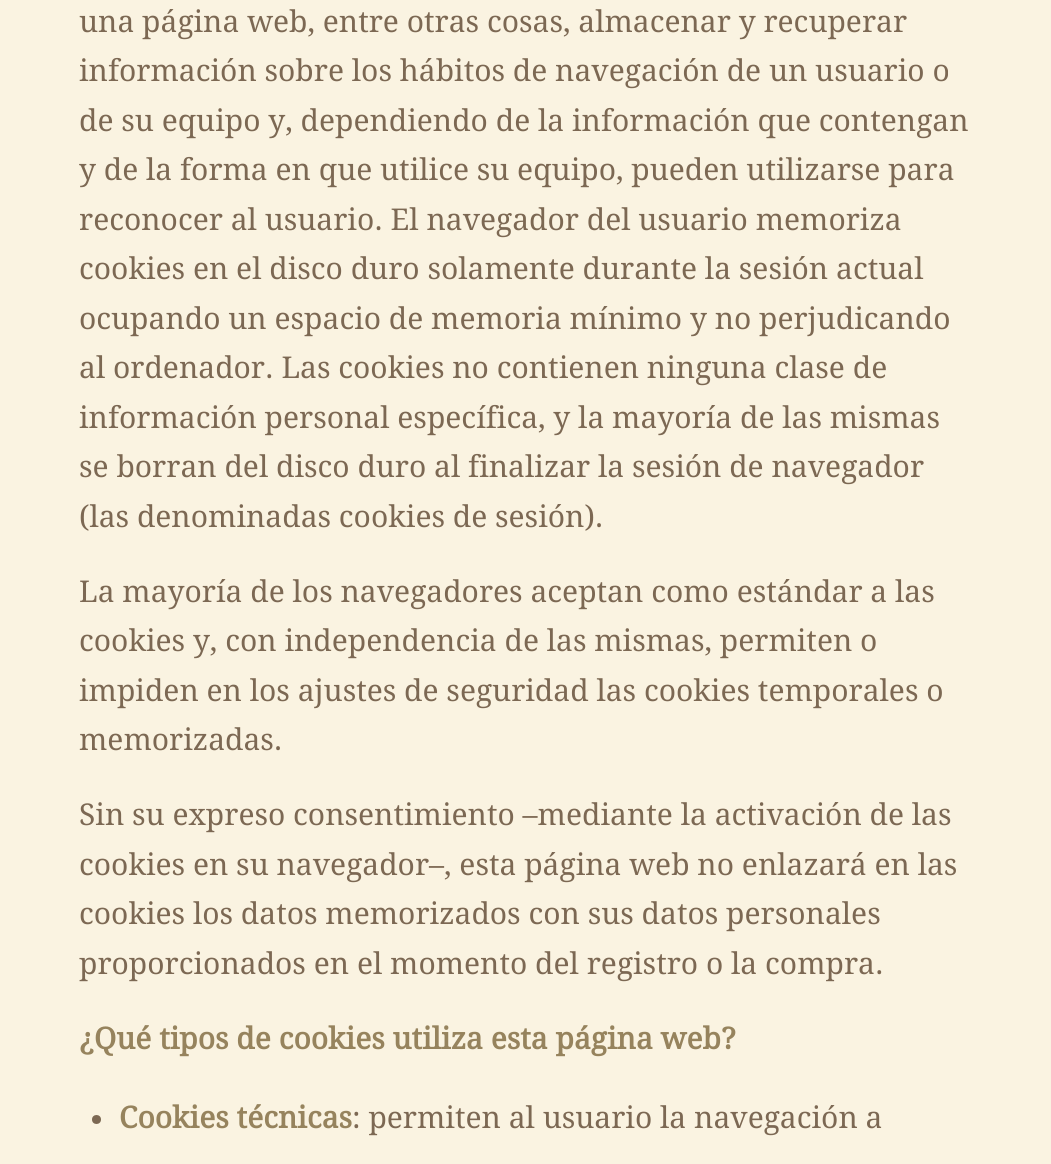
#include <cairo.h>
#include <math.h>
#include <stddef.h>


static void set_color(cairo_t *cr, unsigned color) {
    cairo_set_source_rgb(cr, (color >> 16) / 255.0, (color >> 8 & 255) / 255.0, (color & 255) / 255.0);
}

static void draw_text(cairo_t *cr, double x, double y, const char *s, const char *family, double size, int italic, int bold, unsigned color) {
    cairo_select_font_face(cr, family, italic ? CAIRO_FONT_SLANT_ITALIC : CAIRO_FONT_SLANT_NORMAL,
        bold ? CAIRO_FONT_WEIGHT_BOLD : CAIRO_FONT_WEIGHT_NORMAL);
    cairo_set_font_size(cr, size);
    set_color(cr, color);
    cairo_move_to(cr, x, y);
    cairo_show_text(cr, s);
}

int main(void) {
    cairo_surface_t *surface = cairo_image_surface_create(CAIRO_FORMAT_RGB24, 1051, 1164);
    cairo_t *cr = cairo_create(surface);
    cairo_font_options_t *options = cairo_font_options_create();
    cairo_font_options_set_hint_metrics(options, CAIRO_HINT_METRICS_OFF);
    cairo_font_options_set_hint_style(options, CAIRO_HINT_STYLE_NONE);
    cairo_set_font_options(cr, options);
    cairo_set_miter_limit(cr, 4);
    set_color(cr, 0xFAF3E1);
    cairo_paint(cr);
    draw_text(cr, 79, 32, "una página web, entre otras cosas, almacenar y recuperar", "Droid Serif", 30, 0, 0, 0x7C6853);
    draw_text(cr, 79, 81, "información sobre los hábitos de navegación de un usuario o", "Droid Serif", 30, 0, 0, 0x7C6853);
    draw_text(cr, 79, 131, "de su equipo y, dependiendo de la información que contengan", "Droid Serif", 30, 0, 0, 0x7C6853);
    draw_text(cr, 79, 180, "y de la forma en que utilice su equipo, pueden utilizarse para", "Droid Serif", 30, 0, 0, 0x7C6853);
    draw_text(cr, 79, 230, "reconocer al usuario. El navegador del usuario memoriza", "Droid Serif", 30, 0, 0, 0x7C6853);
    draw_text(cr, 79, 279, "cookies en el disco duro solamente durante la sesión actual", "Droid Serif", 30, 0, 0, 0x7C6853);
    draw_text(cr, 79, 329, "ocupando un espacio de memoria mínimo y no perjudicando", "Droid Serif", 30, 0, 0, 0x7C6853);
    draw_text(cr, 79, 378, "al ordenador. Las cookies no contienen ninguna clase de", "Droid Serif", 30, 0, 0, 0x7C6853);
    draw_text(cr, 79, 428, "información personal específica, y la mayoría de las mismas", "Droid Serif", 30, 0, 0, 0x7C6853);
    draw_text(cr, 79, 477, "se borran del disco duro al finalizar la sesión de navegador", "Droid Serif", 30, 0, 0, 0x7C6853);
    draw_text(cr, 79, 527, "(las denominadas cookies de sesión).", "Droid Serif", 30, 0, 0, 0x7C6853);
    draw_text(cr, 79, 602, "La mayoría de los navegadores aceptan como estándar a las", "Droid Serif", 30, 0, 0, 0x7C6853);
    draw_text(cr, 79, 651, "cookies y, con independencia de las mismas, permiten o", "Droid Serif", 30, 0, 0, 0x7C6853);
    draw_text(cr, 79, 701, "impiden en los ajustes de seguridad las cookies temporales o", "Droid Serif", 30, 0, 0, 0x7C6853);
    draw_text(cr, 79, 750, "memorizadas.", "Droid Serif", 30, 0, 0, 0x7C6853);
    draw_text(cr, 79, 825, "Sin su expreso consentimiento –mediante la activación de las", "Droid Serif", 30, 0, 0, 0x7C6853);
    draw_text(cr, 79, 875, "cookies en su navegador–, esta página web no enlazará en las", "Droid Serif", 30, 0, 0, 0x7C6853);
    draw_text(cr, 79, 924, "cookies los datos memorizados con sus datos personales", "Droid Serif", 30, 0, 0, 0x7C6853);
    draw_text(cr, 79, 974, "proporcionados en el momento del registro o la compra.", "Droid Serif", 30, 0, 0, 0x7C6853);
    draw_text(cr, 79, 1049, "¿Qué tipos de cookies utiliza esta página web?", "Droid Serif", 30, 0, 1, 0x96835D);
    set_color(cr, 0x7C6853);
    cairo_new_path(cr);
    cairo_arc(cr, 96.5, 1119.5, 4.5, 0, 2 * M_PI);
    cairo_fill(cr);
    draw_text(cr, 119, 1128, "Cookies técnicas", "Droid Serif", 30, 0, 1, 0x96835D);
    draw_text(cr, 352, 1128, ": permiten al usuario la navegación a", "Droid Serif", 30, 0, 0, 0x7C6853);
    cairo_surface_write_to_png(surface, "output.png");
    cairo_font_options_destroy(options);
    cairo_destroy(cr);
    cairo_surface_destroy(surface);
    return 0;
}
